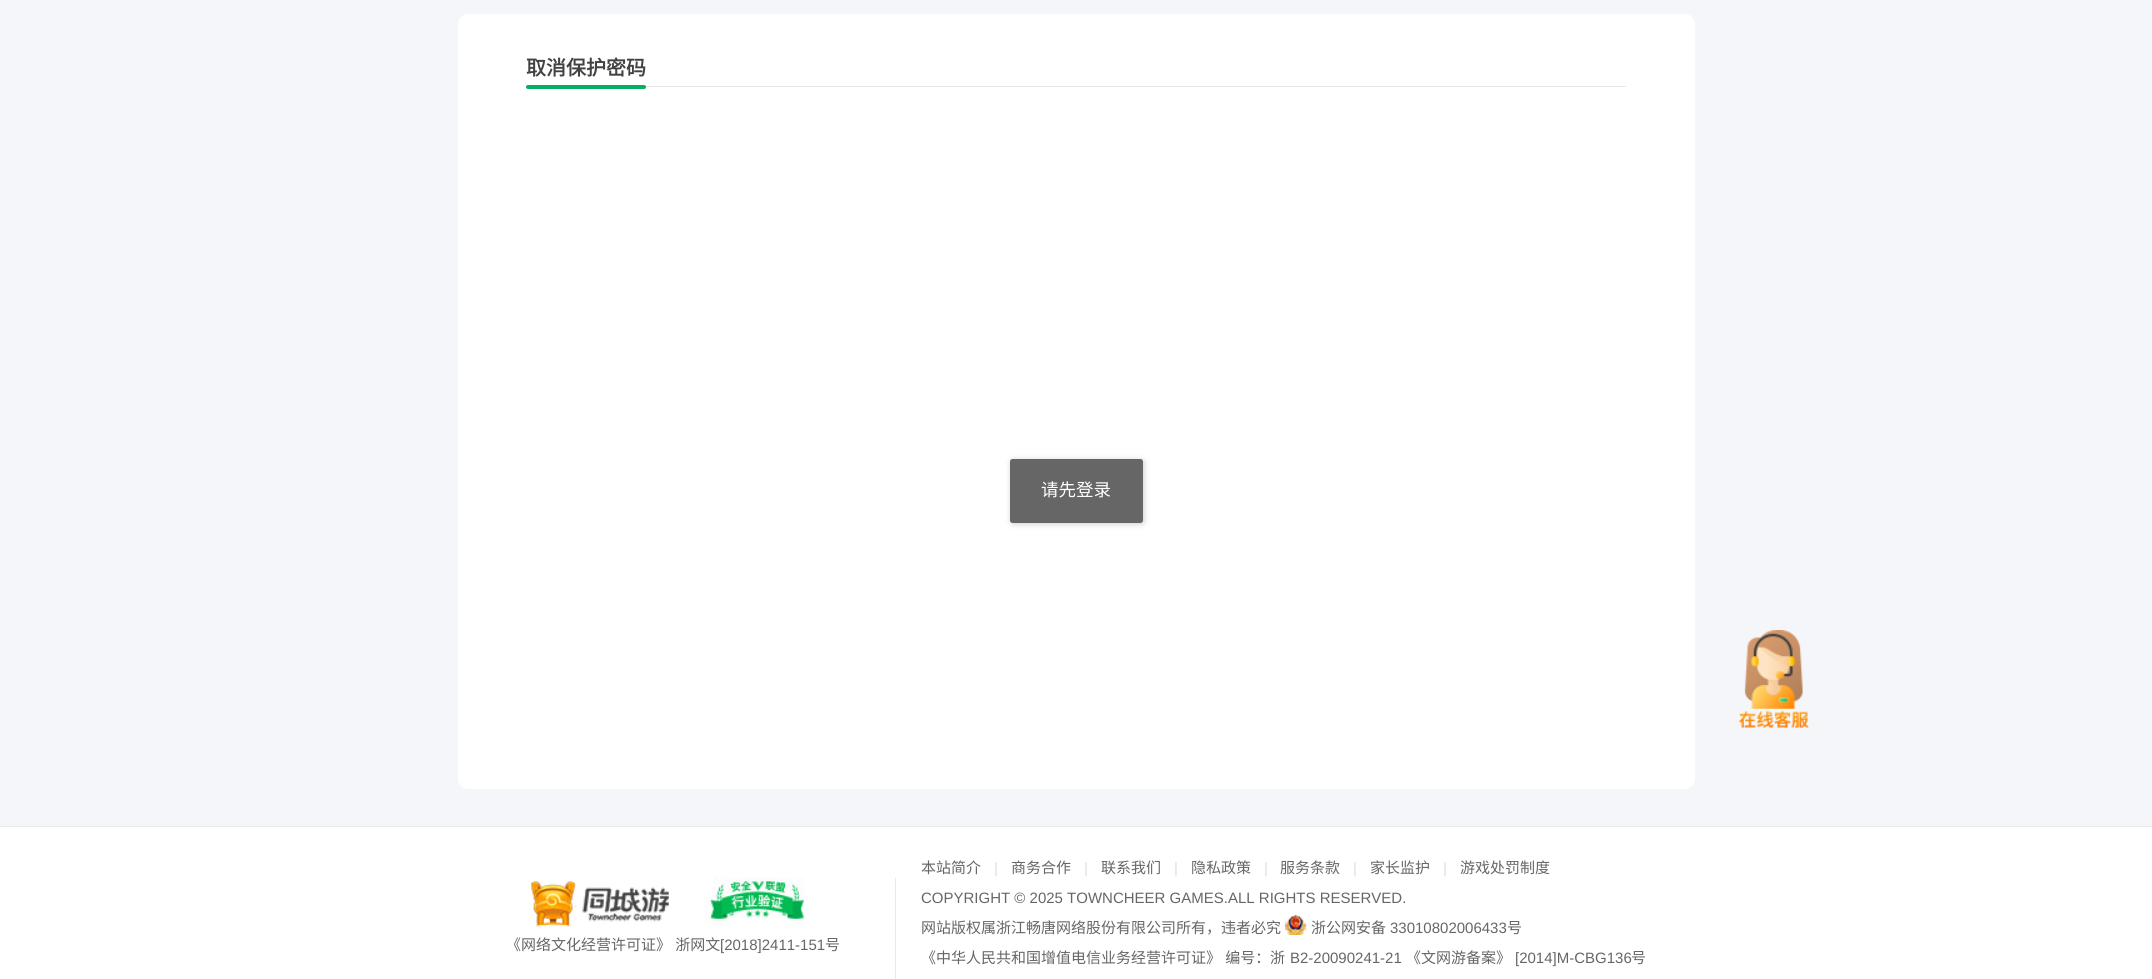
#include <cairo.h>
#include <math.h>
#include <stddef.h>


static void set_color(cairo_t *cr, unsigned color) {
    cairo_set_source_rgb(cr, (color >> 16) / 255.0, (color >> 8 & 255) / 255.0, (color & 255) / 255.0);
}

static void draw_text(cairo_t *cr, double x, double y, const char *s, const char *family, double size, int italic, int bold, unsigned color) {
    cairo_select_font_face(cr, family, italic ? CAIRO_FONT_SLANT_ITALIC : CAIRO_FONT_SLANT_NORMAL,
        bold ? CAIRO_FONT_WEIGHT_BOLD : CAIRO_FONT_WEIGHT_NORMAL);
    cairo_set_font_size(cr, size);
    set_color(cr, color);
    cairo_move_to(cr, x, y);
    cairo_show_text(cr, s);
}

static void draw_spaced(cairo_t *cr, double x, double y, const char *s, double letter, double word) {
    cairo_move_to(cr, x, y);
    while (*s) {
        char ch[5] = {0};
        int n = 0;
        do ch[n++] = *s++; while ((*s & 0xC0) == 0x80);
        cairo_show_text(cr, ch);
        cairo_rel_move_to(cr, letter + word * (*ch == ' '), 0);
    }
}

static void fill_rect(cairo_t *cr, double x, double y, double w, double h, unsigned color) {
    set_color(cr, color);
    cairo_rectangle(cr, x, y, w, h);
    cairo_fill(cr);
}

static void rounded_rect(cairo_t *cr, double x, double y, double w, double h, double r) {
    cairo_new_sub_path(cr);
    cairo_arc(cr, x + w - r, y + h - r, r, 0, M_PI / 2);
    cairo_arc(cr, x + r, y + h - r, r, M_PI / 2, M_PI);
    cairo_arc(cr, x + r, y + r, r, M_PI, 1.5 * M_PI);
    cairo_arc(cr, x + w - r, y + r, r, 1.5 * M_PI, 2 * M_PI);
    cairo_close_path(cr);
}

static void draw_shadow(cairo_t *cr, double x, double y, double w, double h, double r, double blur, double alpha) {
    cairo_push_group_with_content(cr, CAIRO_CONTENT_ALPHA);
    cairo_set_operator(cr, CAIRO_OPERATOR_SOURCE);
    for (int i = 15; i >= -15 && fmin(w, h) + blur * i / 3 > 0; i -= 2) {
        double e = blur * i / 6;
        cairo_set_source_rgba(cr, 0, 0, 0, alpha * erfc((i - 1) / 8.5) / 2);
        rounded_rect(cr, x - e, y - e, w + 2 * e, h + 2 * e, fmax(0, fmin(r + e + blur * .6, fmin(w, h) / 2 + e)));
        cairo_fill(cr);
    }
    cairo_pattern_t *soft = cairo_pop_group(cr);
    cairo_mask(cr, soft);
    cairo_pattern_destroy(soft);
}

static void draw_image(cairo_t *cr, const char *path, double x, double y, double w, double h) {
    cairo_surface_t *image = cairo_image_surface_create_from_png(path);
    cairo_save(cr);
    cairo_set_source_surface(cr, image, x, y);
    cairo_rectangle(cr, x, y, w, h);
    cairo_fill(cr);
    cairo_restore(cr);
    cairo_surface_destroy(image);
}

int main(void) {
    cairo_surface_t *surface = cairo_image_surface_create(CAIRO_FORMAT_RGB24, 2152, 979);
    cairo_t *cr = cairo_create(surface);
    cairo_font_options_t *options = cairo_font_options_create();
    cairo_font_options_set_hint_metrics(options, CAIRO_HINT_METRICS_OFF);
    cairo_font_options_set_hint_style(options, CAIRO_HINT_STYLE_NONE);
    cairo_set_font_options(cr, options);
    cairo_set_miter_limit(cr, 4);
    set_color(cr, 0xF5F6FA);
    cairo_paint(cr);
    set_color(cr, 0xFFFFFF);
    rounded_rect(cr, 458, 14, 1237, 775, 10);
    cairo_fill(cr);
    draw_text(cr, 526, 75, "取消保护密码", "Noto Sans CJK SC", 20, 0, 1, 0x424242);
    set_color(cr, 0xE6E6E9);
    rounded_rect(cr, 526, 86, 1100, 1, 0.5);
    cairo_fill(cr);
    set_color(cr, 0x02AF65);
    rounded_rect(cr, 526, 85, 120, 4, 2);
    cairo_fill(cr);
    cairo_save(cr);
    cairo_set_fill_rule(cr, CAIRO_FILL_RULE_EVEN_ODD);
    cairo_new_path(cr);
    cairo_move_to(cr, 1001, 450);
    cairo_line_to(cr, 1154, 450);
    cairo_line_to(cr, 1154, 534);
    cairo_line_to(cr, 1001, 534);
    cairo_close_path(cr);
    cairo_move_to(cr, 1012.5, 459);
    cairo_line_to(cr, 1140.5, 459);
    cairo_curve_to(cr, 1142, 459, 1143, 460, 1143, 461.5);
    cairo_line_to(cr, 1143, 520.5);
    cairo_curve_to(cr, 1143, 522, 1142, 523, 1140.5, 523);
    cairo_line_to(cr, 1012.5, 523);
    cairo_curve_to(cr, 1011, 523, 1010, 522, 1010, 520.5);
    cairo_line_to(cr, 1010, 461.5);
    cairo_curve_to(cr, 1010, 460, 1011, 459, 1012.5, 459);
    cairo_close_path(cr);
    cairo_clip(cr);
    set_color(cr, 0x000000);
    draw_shadow(cr, 1011, 460, 133, 64, 2.5, 3, 0.2);
    cairo_restore(cr);
    cairo_set_source_rgba(cr, 0, 0, 0, 0.6);
    rounded_rect(cr, 1010, 459, 133, 64, 2.5);
    cairo_fill(cr);
    draw_text(cr, 1041, 496, "请先登录", "Noto Sans CJK SC", 17.5, 0, 0, 0xFFFFFF);
    draw_image(cr, "assets/img1.png", 1738, 630, 71, 99);
    fill_rect(cr, 0, 827, 2152, 152, 0xFFFFFF);
    fill_rect(cr, 0, 826, 2152, 1, 0xEAEAEA);
    fill_rect(cr, 895, 878, 1, 101, 0xEAEAEA);
    draw_image(cr, "assets/img2.png", 531, 881, 138, 46);
    draw_image(cr, "assets/img3.png", 704, 877, 100, 50);
    cairo_set_font_size(cr, 15);
    set_color(cr, 0x666666);
    draw_spaced(cr, 506, 950, "《网络文化经营许可证》 浙网文", 0, 1);
    draw_text(cr, 720, 950, "[2018]2411-151", "Liberation Sans", 15, 0, 0, 0x666666);
    draw_text(cr, 825, 950, "号", "Noto Sans CJK SC", 15, 0, 0, 0x666666);
    draw_text(cr, 921, 873, "本站简介", "Noto Sans CJK SC", 15, 0, 0, 0x666666);
    draw_text(cr, 994, 873, "|", "Liberation Sans", 15, 0, 0, 0xDDDDDD);
    draw_text(cr, 1011, 873, "商务合作", "Noto Sans CJK SC", 15, 0, 0, 0x666666);
    draw_text(cr, 1084, 873, "|", "Liberation Sans", 15, 0, 0, 0xDDDDDD);
    draw_text(cr, 1101, 873, "联系我们", "Noto Sans CJK SC", 15, 0, 0, 0x666666);
    draw_text(cr, 1174, 873, "|", "Liberation Sans", 15, 0, 0, 0xDDDDDD);
    draw_text(cr, 1191, 873, "隐私政策", "Noto Sans CJK SC", 15, 0, 0, 0x666666);
    draw_text(cr, 1264, 873, "|", "Liberation Sans", 15, 0, 0, 0xDDDDDD);
    draw_text(cr, 1280, 873, "服务条款", "Noto Sans CJK SC", 15, 0, 0, 0x666666);
    draw_text(cr, 1353, 873, "|", "Liberation Sans", 15, 0, 0, 0xDDDDDD);
    draw_text(cr, 1370, 873, "家长监护", "Noto Sans CJK SC", 15, 0, 0, 0x666666);
    draw_text(cr, 1443, 873, "|", "Liberation Sans", 15, 0, 0, 0xDDDDDD);
    draw_text(cr, 1460, 873, "游戏处罚制度", "Noto Sans CJK SC", 15, 0, 0, 0x666666);
    draw_text(cr, 921, 903, "COPYRIGHT © 2025 TOWNCHEER GAMES.ALL RIGHTS RESERVED.", "Liberation Sans", 15, 0, 0, 0x666666);
    draw_text(cr, 921, 933, "网站版权属浙江畅唐网络股份有限公司所有，违者必究", "Noto Sans CJK SC", 15, 0, 0, 0x666666);
    draw_image(cr, "assets/img4.png", 1285, 915, 22, 20);
    draw_text(cr, 1311, 933, "浙公网安备", "Noto Sans CJK SC", 15, 0, 0, 0x666666);
    draw_text(cr, 1390, 933, "33010802006433", "Liberation Sans", 15, 0, 0, 0x666666);
    draw_text(cr, 1507, 933, "号", "Noto Sans CJK SC", 15, 0, 0, 0x666666);
    draw_spaced(cr, 921, 963, "《中华人民共和国增值电信业务经营许可证》 编号：", 0, 1);
    draw_text(cr, 1270, 963, "浙", "Noto Sans CJK SC", 15, 0, 0, 0x666666);
    draw_text(cr, 1290, 963, "B2-20090241-21", "Liberation Sans", 15, 0, 0, 0x666666);
    draw_text(cr, 1406, 963, "《文网游备案》", "Noto Sans CJK SC", 15, 0, 0, 0x666666);
    draw_text(cr, 1515, 963, "[2014]M-CBG136", "Liberation Sans", 15, 0, 0, 0x666666);
    draw_text(cr, 1631, 963, "号", "Noto Sans CJK SC", 15, 0, 0, 0x666666);
    cairo_surface_write_to_png(surface, "output.png");
    cairo_font_options_destroy(options);
    cairo_destroy(cr);
    cairo_surface_destroy(surface);
    return 0;
}
